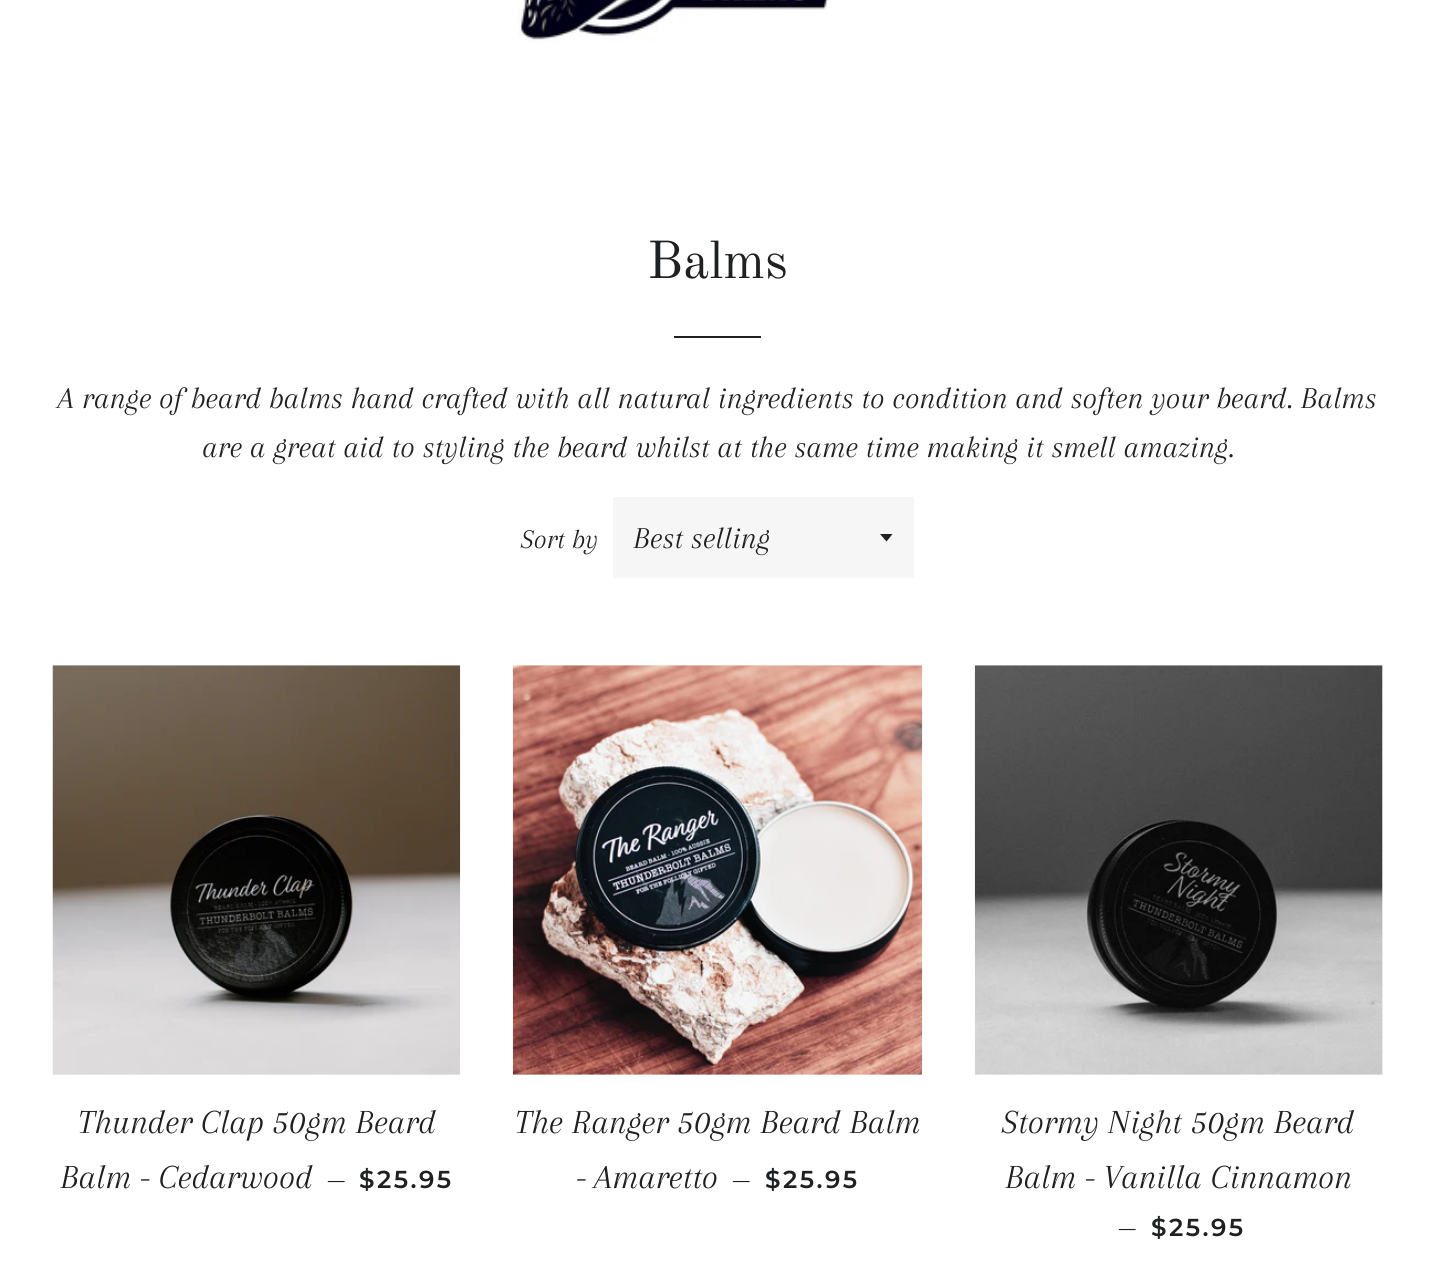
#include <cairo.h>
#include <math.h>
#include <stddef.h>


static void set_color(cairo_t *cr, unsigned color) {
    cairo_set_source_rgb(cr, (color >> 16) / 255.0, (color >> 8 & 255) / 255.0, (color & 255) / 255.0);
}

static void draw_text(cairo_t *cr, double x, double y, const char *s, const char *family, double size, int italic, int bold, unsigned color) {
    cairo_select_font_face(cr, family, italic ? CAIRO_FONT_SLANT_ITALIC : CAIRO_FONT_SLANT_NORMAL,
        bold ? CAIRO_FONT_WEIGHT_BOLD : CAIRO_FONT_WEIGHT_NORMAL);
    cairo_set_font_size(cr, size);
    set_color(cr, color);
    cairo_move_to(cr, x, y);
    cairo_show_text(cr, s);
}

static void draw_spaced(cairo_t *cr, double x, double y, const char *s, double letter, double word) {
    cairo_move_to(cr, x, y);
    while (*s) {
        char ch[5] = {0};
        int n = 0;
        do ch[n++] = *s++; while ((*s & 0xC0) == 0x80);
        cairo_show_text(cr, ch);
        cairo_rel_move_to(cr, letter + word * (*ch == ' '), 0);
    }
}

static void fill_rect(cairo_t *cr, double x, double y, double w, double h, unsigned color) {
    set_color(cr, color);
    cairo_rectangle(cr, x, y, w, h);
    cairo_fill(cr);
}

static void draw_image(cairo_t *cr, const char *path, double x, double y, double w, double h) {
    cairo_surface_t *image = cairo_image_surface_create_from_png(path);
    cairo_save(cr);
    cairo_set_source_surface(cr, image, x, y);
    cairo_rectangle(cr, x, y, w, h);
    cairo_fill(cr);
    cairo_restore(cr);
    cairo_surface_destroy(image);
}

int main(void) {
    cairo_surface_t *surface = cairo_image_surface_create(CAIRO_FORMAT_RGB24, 1434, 1271);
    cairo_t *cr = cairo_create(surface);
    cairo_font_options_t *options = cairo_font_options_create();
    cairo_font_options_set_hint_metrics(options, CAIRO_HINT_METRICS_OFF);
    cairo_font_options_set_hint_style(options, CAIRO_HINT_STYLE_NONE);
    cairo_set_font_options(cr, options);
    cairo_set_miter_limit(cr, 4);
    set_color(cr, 0xFFFFFF);
    cairo_paint(cr);
    draw_image(cr, "assets/img1.png", 518, 0, 313, 43);
    draw_text(cr, 647, 278, "Balms", "Old Standard TT", 52.5, 0, 0, 0x1F2021);
    fill_rect(cr, 674, 336, 87, 2, 0x1F2021);
    draw_text(cr, 58, 408, "A range of beard balms hand crafted with all natural ingredients to condition and soften your beard. Balms", "Arapey", 31.5, 1, 0, 0x1F2021);
    draw_text(cr, 202, 457, "are a great aid to styling the beard whilst at the same time making it smell amazing.", "Arapey", 31.5, 1, 0, 0x1F2021);
    draw_text(cr, 521, 548, "Sort by", "Arapey", 28, 1, 0, 0x1F2021);
    fill_rect(cr, 613, 497, 301, 81, 0xF6F6F6);
    set_color(cr, 0x1F2021);
    cairo_new_path(cr);
    cairo_move_to(cr, 880, 534);
    cairo_line_to(cr, 886.5, 541.5);
    cairo_line_to(cr, 892.5, 534);
    cairo_close_path(cr);
    cairo_fill(cr);
    draw_text(cr, 633, 548, "Best selling", "Arapey", 31.5, 1, 0, 0x1F2021);
    fill_rect(cr, 53, 665, 407, 410, 0xF6F6F6);
    draw_image(cr, "assets/img2.png", 52, 665, 409, 410);
    draw_text(cr, 78, 1133, "Thunder Clap 50gm Beard", "Arapey", 35, 1, 0, 0x1F2021);
    draw_text(cr, 60, 1188, "Balm - Cedarwood", "Arapey", 35, 1, 0, 0x1F2021);
    draw_text(cr, 327, 1188, "—", "Arapey", 28, 0, 0, 0x1F2021);
    cairo_select_font_face(cr, "Montserrat SemiBold", CAIRO_FONT_SLANT_NORMAL, CAIRO_FONT_WEIGHT_NORMAL);
    cairo_set_font_size(cr, 24.5);
    draw_spaced(cr, 359, 1188, "$25.95", 2.5, 0);
    fill_rect(cr, 513, 665, 409, 410, 0xF6F6F6);
    draw_image(cr, "assets/img3.png", 512, 665, 411, 410);
    draw_text(cr, 515, 1133, "The Ranger 50gm Beard Balm", "Arapey", 35, 1, 0, 0x1F2021);
    draw_text(cr, 576, 1188, "- Amaretto", "Arapey", 35, 1, 0, 0x1F2021);
    draw_text(cr, 732, 1188, "—", "Arapey", 28, 0, 0, 0x1F2021);
    cairo_select_font_face(cr, "Montserrat SemiBold", CAIRO_FONT_SLANT_NORMAL, CAIRO_FONT_WEIGHT_NORMAL);
    cairo_set_font_size(cr, 24.5);
    draw_spaced(cr, 765, 1188, "$25.95", 2.5, 0);
    fill_rect(cr, 975, 665, 408, 410, 0xF6F6F6);
    draw_image(cr, "assets/img4.png", 974, 665, 409, 410);
    draw_text(cr, 1002, 1133, "Stormy Night 50gm Beard", "Arapey", 35, 1, 0, 0x1F2021);
    draw_text(cr, 1005, 1188, "Balm - Vanilla Cinnamon", "Arapey", 35, 1, 0, 0x1F2021);
    draw_text(cr, 1118, 1236, "—", "Arapey", 28, 0, 0, 0x1F2021);
    cairo_select_font_face(cr, "Montserrat SemiBold", CAIRO_FONT_SLANT_NORMAL, CAIRO_FONT_WEIGHT_NORMAL);
    cairo_set_font_size(cr, 24.5);
    draw_spaced(cr, 1151, 1236, "$25.95", 2.5, 0);
    cairo_surface_write_to_png(surface, "output.png");
    cairo_font_options_destroy(options);
    cairo_destroy(cr);
    cairo_surface_destroy(surface);
    return 0;
}
